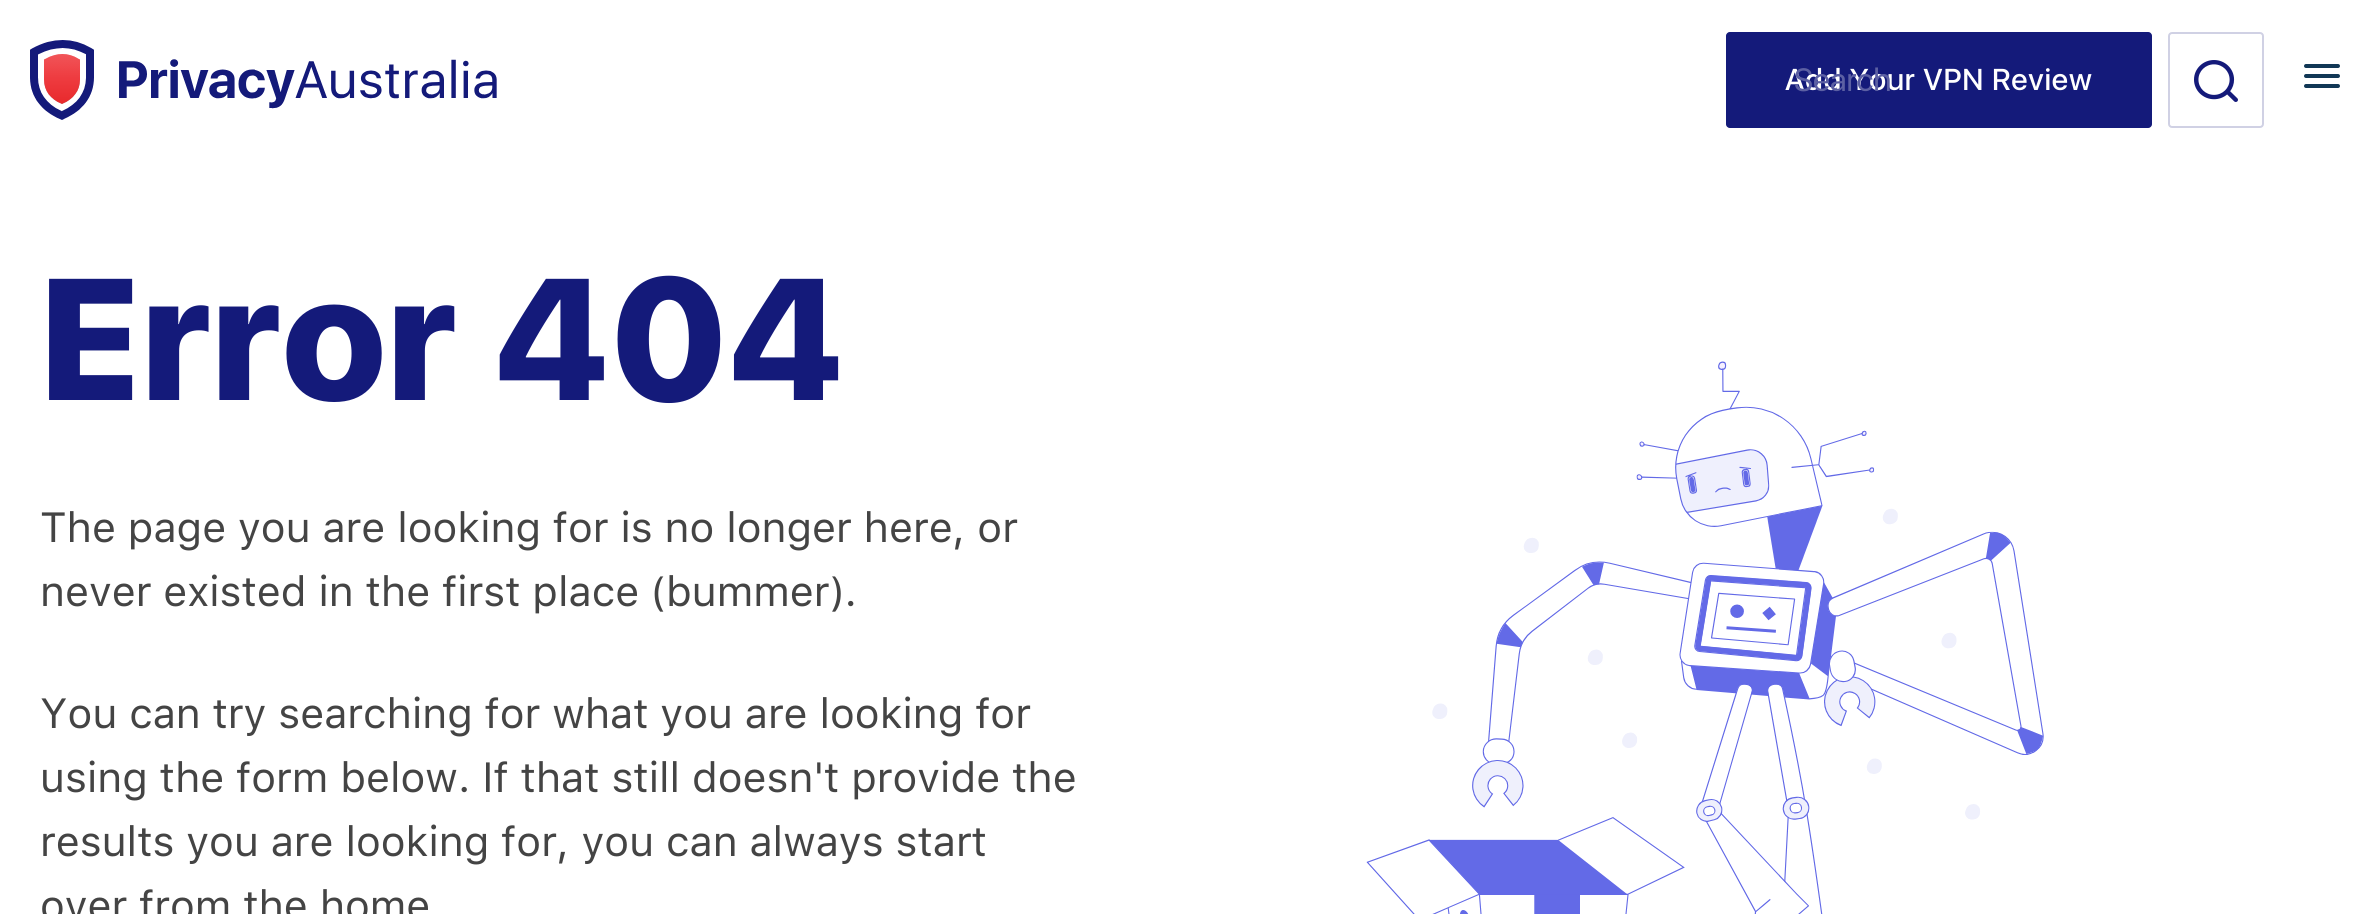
#include <cairo.h>
#include <math.h>
#include <stddef.h>


static void set_color(cairo_t *cr, unsigned color) {
    cairo_set_source_rgb(cr, (color >> 16) / 255.0, (color >> 8 & 255) / 255.0, (color & 255) / 255.0);
}

static void draw_text(cairo_t *cr, double x, double y, const char *s, const char *family, double size, int italic, int bold, unsigned color) {
    cairo_select_font_face(cr, family, italic ? CAIRO_FONT_SLANT_ITALIC : CAIRO_FONT_SLANT_NORMAL,
        bold ? CAIRO_FONT_WEIGHT_BOLD : CAIRO_FONT_WEIGHT_NORMAL);
    cairo_set_font_size(cr, size);
    set_color(cr, color);
    cairo_move_to(cr, x, y);
    cairo_show_text(cr, s);
}

static void draw_spaced(cairo_t *cr, double x, double y, const char *s, double letter, double word) {
    cairo_move_to(cr, x, y);
    while (*s) {
        char ch[5] = {0};
        int n = 0;
        do ch[n++] = *s++; while ((*s & 0xC0) == 0x80);
        cairo_show_text(cr, ch);
        cairo_rel_move_to(cr, letter + word * (*ch == ' '), 0);
    }
}

static void rounded_rect(cairo_t *cr, double x, double y, double w, double h, double r) {
    cairo_new_sub_path(cr);
    cairo_arc(cr, x + w - r, y + h - r, r, 0, M_PI / 2);
    cairo_arc(cr, x + r, y + h - r, r, M_PI / 2, M_PI);
    cairo_arc(cr, x + r, y + r, r, M_PI, 1.5 * M_PI);
    cairo_arc(cr, x + w - r, y + r, r, 1.5 * M_PI, 2 * M_PI);
    cairo_close_path(cr);
}

static void draw_image(cairo_t *cr, const char *path, double x, double y, double w, double h) {
    cairo_surface_t *image = cairo_image_surface_create_from_png(path);
    cairo_save(cr);
    cairo_set_source_surface(cr, image, x, y);
    cairo_rectangle(cr, x, y, w, h);
    cairo_fill(cr);
    cairo_restore(cr);
    cairo_surface_destroy(image);
}

int main(void) {
    cairo_surface_t *surface = cairo_image_surface_create(CAIRO_FORMAT_RGB24, 2369, 914);
    cairo_t *cr = cairo_create(surface);
    cairo_font_options_t *options = cairo_font_options_create();
    cairo_font_options_set_hint_metrics(options, CAIRO_HINT_METRICS_OFF);
    cairo_font_options_set_hint_style(options, CAIRO_HINT_STYLE_NONE);
    cairo_set_font_options(cr, options);
    cairo_set_miter_limit(cr, 4);
    set_color(cr, 0xFFFFFF);
    cairo_paint(cr);
    draw_image(cr, "assets/img1.png", 30, 40, 467, 80);
    set_color(cr, 0x141A7A);
    rounded_rect(cr, 1726, 32, 426, 96, 4);
    cairo_fill(cr);
    rounded_rect(cr, 1727, 33, 424, 94, 3);
    cairo_set_source_rgba(cr, 0.078, 0.102, 0.478, 0.2);
    cairo_stroke(cr);
    cairo_select_font_face(cr, "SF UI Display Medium", CAIRO_FONT_SLANT_NORMAL, CAIRO_FONT_WEIGHT_NORMAL);
    cairo_set_font_size(cr, 30);
    set_color(cr, 0xFFFFFF);
    draw_spaced(cr, 1785, 90, "Add Your VPN Review", 0.75, 0);
    set_color(cr, 0x113755);
    rounded_rect(cr, 2304, 64, 36, 4, 2);
    cairo_fill(cr);
    rounded_rect(cr, 2304, 74, 36, 4, 2);
    cairo_fill(cr);
    rounded_rect(cr, 2304, 84, 36, 4, 2);
    cairo_fill(cr);
    draw_text(cr, 1794, 91, "Search", "SF UI Display", 32, 0, 0, 0x5C60A3);
    rounded_rect(cr, 2169, 33, 94, 94, 3);
    set_color(cr, 0xD0D1E4);
    cairo_stroke(cr);
    draw_image(cr, "assets/img2.png", 2194, 60, 44, 42);
    cairo_select_font_face(cr, "SF UI Display Black", CAIRO_FONT_SLANT_NORMAL, CAIRO_FONT_WEIGHT_NORMAL);
    cairo_set_font_size(cr, 172);
    set_color(cr, 0x141A7A);
    draw_spaced(cr, 40, 400, "Error 404", 1.5, 0);
    draw_text(cr, 40, 542, "The page you are looking for is no longer here, or", "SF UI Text", 42, 0, 0, 0x444444);
    draw_text(cr, 40, 606, "never existed in the first place (bummer).", "SF UI Text", 42, 0, 0, 0x444444);
    draw_text(cr, 40, 728, "You can try searching for what you are looking for", "SF UI Text", 42, 0, 0, 0x444444);
    draw_text(cr, 40, 792, "using the form below. If that still doesn't provide the", "SF UI Text", 42, 0, 0, 0x444444);
    draw_text(cr, 40, 856, "results you are looking for, you can always start", "SF UI Text", 42, 0, 0, 0x444444);
    draw_text(cr, 40, 920, "over from the home", "SF UI Text", 42, 0, 0, 0x444444);
    draw_image(cr, "assets/img3.png", 1366, 361, 678, 553);
    cairo_surface_write_to_png(surface, "output.png");
    cairo_font_options_destroy(options);
    cairo_destroy(cr);
    cairo_surface_destroy(surface);
    return 0;
}
